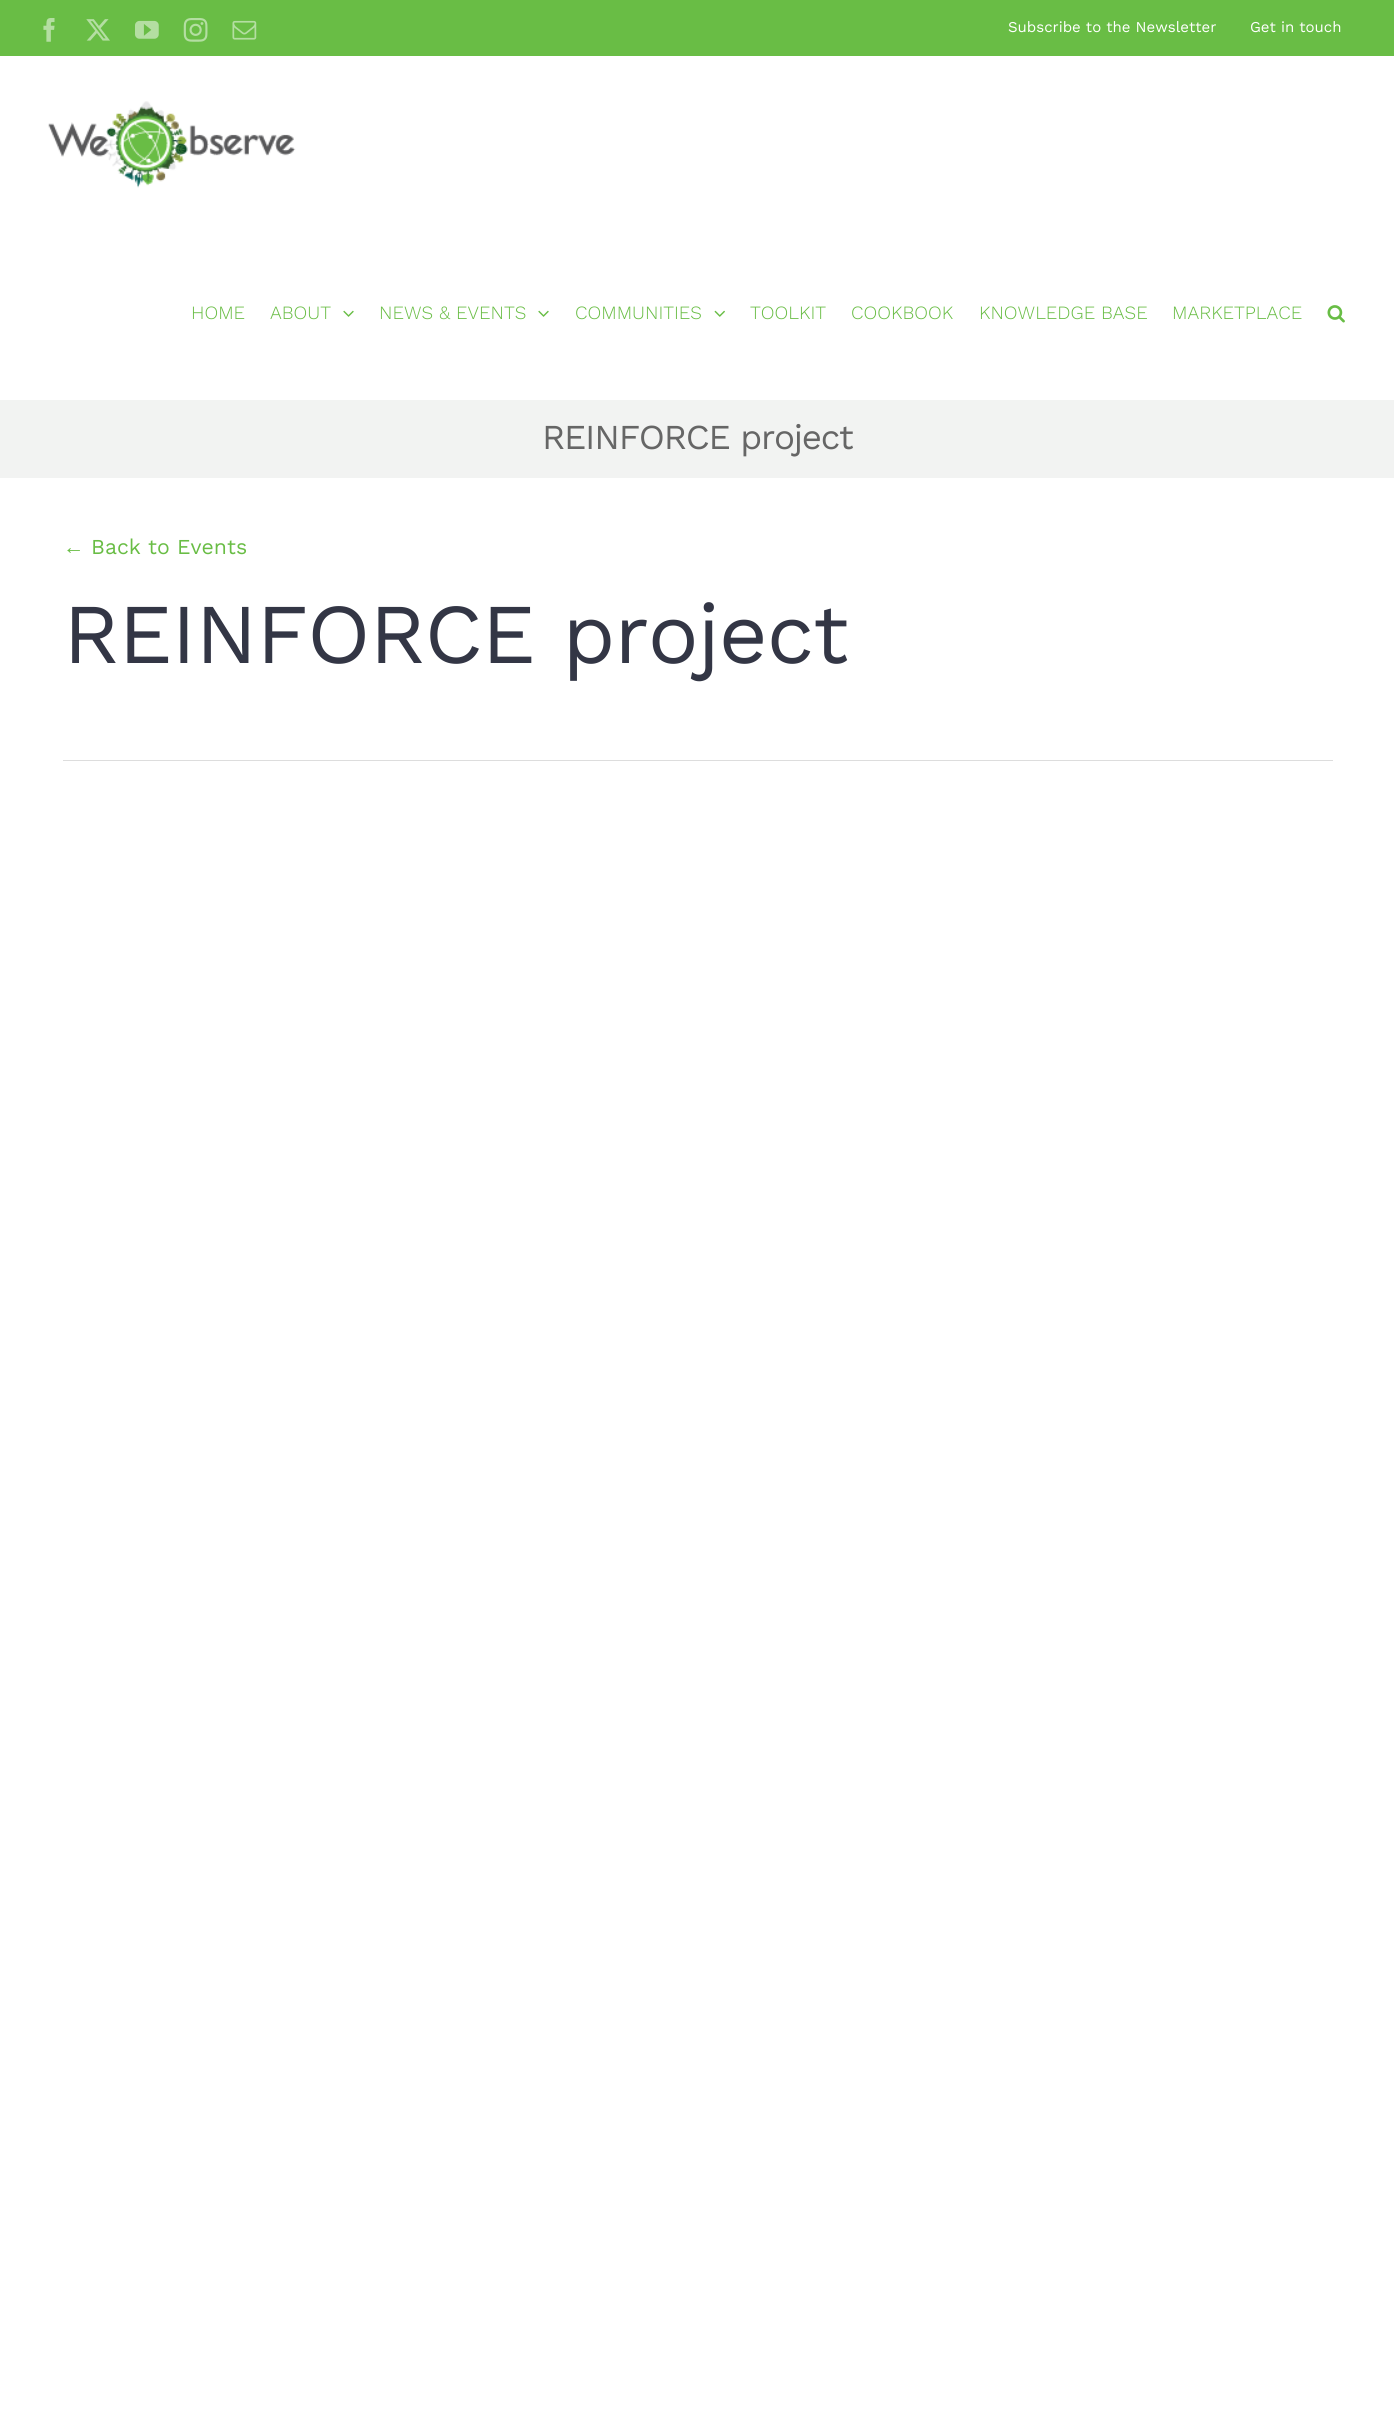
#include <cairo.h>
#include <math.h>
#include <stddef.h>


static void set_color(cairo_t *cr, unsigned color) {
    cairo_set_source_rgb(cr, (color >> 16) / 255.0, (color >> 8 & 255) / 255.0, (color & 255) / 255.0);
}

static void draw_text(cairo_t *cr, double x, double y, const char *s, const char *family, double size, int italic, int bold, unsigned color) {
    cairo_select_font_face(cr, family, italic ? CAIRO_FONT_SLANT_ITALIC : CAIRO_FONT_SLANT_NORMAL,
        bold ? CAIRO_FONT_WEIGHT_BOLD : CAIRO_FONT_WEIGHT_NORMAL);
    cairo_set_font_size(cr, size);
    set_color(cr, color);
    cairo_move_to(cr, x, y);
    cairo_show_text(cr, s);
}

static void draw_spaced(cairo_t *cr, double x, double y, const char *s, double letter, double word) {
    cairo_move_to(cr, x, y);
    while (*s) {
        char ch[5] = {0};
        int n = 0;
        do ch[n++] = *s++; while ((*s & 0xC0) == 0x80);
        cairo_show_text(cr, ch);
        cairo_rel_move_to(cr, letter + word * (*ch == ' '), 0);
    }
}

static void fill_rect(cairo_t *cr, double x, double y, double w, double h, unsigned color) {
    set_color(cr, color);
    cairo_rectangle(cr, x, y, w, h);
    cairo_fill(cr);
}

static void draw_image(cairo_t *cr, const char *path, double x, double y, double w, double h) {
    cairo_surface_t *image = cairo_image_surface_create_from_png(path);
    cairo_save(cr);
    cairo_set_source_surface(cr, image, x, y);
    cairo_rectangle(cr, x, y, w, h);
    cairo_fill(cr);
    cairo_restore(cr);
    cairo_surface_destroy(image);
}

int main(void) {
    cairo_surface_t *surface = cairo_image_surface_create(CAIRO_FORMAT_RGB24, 1394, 2409);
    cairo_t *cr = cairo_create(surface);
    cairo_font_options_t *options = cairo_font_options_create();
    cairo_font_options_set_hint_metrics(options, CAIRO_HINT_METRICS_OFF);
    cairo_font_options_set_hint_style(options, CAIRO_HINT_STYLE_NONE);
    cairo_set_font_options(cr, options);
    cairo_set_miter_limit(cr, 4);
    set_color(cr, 0xFFFFFF);
    cairo_paint(cr);
    fill_rect(cr, 0, 0, 1394, 56, 0x69BD45);
    draw_image(cr, "assets/img1.png", 43, 18, 12, 24);
    draw_image(cr, "assets/img2.png", 86, 19, 24, 22);
    draw_image(cr, "assets/img3.png", 135, 20, 24, 19);
    draw_image(cr, "assets/img4.png", 183, 18, 25, 24);
    draw_image(cr, "assets/img5.png", 232, 20, 25, 20);
    draw_text(cr, 1008, 32, "Subscribe to the Newsletter", "Work Sans", 15, 0, 0, 0xFFFFFF);
    draw_text(cr, 1250, 32, "Get in touch", "Work Sans", 15, 0, 0, 0xFFFFFF);
    draw_image(cr, "assets/img6.png", 48, 101, 248, 87);
    draw_text(cr, 191, 319, "HOME", "Work Sans Light", 18.75, 0, 0, 0x69BD45);
    draw_text(cr, 270, 319, "ABOUT", "Work Sans Light", 18.75, 0, 0, 0x69BD45);
    draw_image(cr, "assets/img7.png", 343, 310, 11, 7);
    draw_text(cr, 379, 319, "NEWS & EVENTS", "Work Sans Light", 18.75, 0, 0, 0x69BD45);
    draw_image(cr, "assets/img7.png", 538, 310, 11, 7);
    draw_text(cr, 575, 319, "COMMUNITIES", "Work Sans Light", 18.75, 0, 0, 0x69BD45);
    draw_image(cr, "assets/img8.png", 714, 310, 11, 7);
    draw_text(cr, 750, 319, "TOOLKIT", "Work Sans Light", 18.75, 0, 0, 0x69BD45);
    draw_text(cr, 851, 319, "COOKBOOK", "Work Sans Light", 18.75, 0, 0, 0x69BD45);
    draw_text(cr, 979, 319, "KNOWLEDGE BASE", "Work Sans Light", 18.75, 0, 0, 0x69BD45);
    draw_text(cr, 1172, 319, "MARKETPLACE", "Work Sans Light", 18.75, 0, 0, 0x69BD45);
    draw_image(cr, "assets/img9.png", 1327, 305, 18, 18);
    fill_rect(cr, 0, 400, 1394, 78, 0xF2F3F2);
    cairo_select_font_face(cr, "Work Sans", CAIRO_FONT_SLANT_NORMAL, CAIRO_FONT_WEIGHT_NORMAL);
    cairo_set_font_size(cr, 35);
    set_color(cr, 0x666666);
    draw_spaced(cr, 542, 449, "REINFORCE project", -1.25, 0);
    draw_text(cr, 63, 554, "←", "Liberation Serif", 21.25, 0, 0, 0x69BD45);
    draw_text(cr, 91, 554, "Back to Events", "Work Sans", 21.25, 0, 0, 0x69BD45);
    fill_rect(cr, 63, 760, 1270, 1, 0xDDDDDD);
    cairo_set_font_size(cr, 85);
    set_color(cr, 0x333645);
    draw_spaced(cr, 63, 663, "REINFORCE project", -1.25, 0);
    cairo_surface_write_to_png(surface, "output.png");
    cairo_font_options_destroy(options);
    cairo_destroy(cr);
    cairo_surface_destroy(surface);
    return 0;
}
